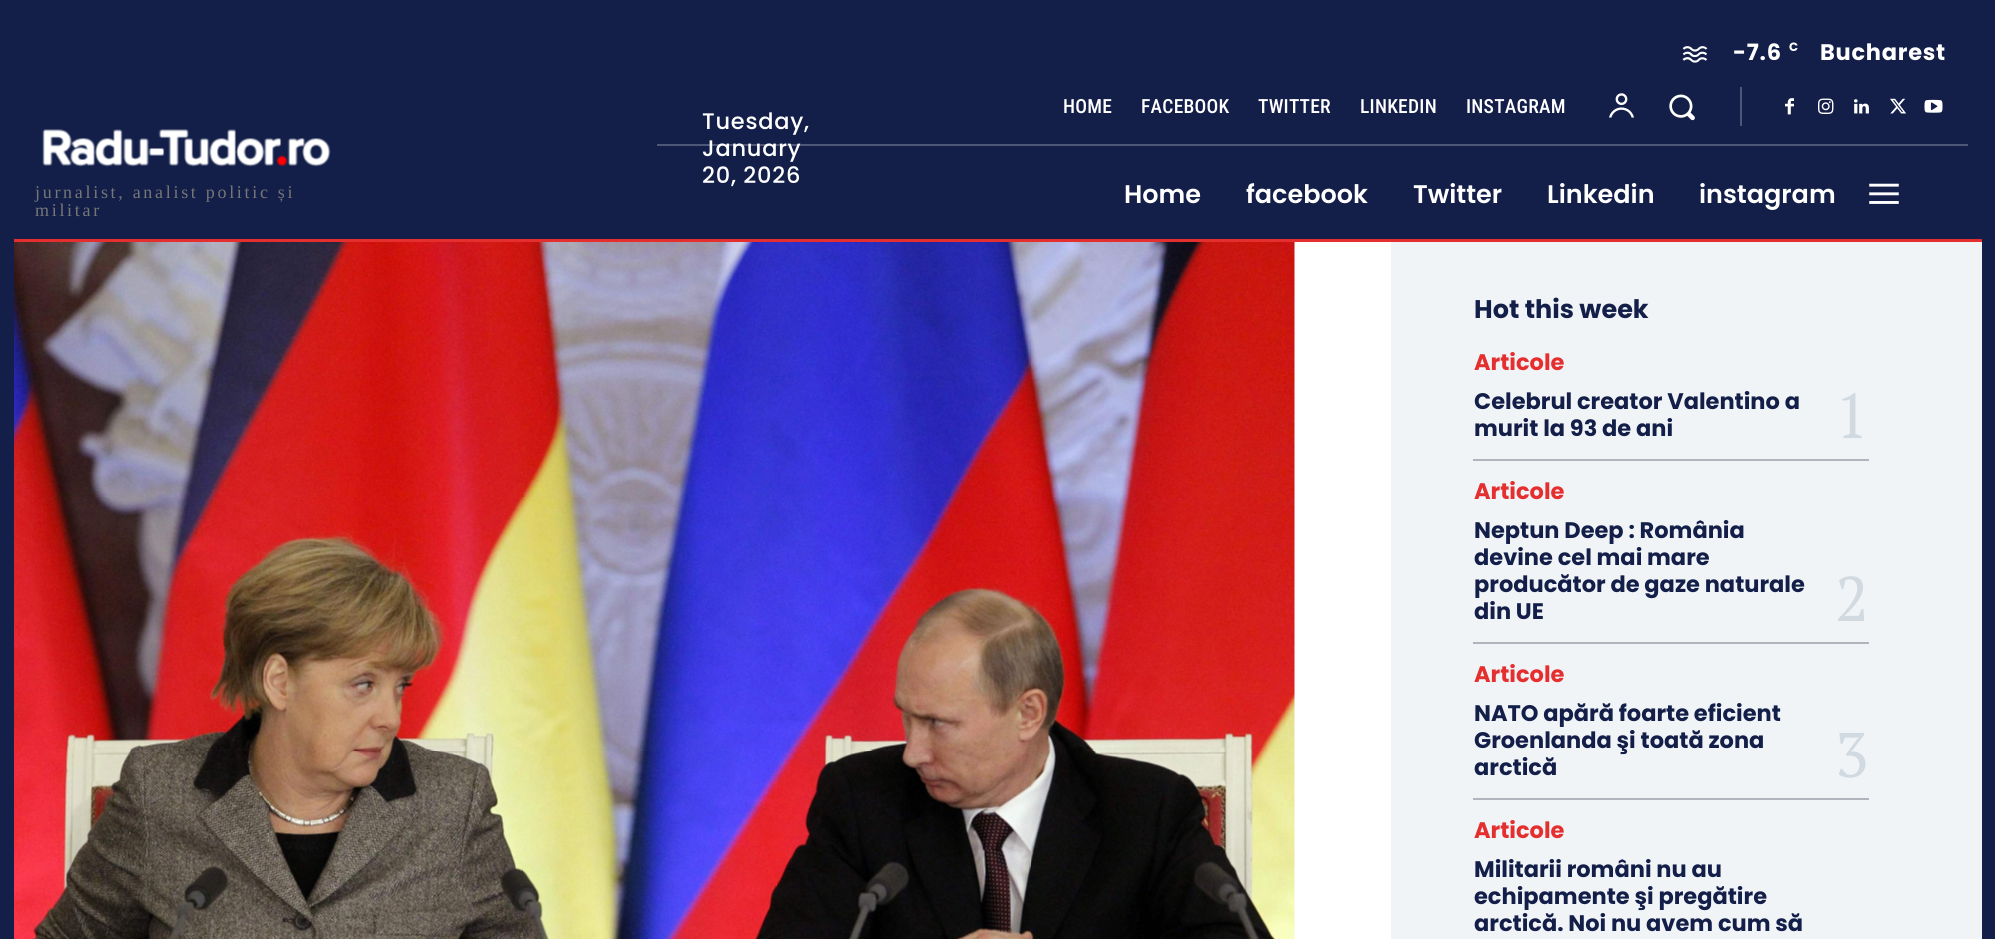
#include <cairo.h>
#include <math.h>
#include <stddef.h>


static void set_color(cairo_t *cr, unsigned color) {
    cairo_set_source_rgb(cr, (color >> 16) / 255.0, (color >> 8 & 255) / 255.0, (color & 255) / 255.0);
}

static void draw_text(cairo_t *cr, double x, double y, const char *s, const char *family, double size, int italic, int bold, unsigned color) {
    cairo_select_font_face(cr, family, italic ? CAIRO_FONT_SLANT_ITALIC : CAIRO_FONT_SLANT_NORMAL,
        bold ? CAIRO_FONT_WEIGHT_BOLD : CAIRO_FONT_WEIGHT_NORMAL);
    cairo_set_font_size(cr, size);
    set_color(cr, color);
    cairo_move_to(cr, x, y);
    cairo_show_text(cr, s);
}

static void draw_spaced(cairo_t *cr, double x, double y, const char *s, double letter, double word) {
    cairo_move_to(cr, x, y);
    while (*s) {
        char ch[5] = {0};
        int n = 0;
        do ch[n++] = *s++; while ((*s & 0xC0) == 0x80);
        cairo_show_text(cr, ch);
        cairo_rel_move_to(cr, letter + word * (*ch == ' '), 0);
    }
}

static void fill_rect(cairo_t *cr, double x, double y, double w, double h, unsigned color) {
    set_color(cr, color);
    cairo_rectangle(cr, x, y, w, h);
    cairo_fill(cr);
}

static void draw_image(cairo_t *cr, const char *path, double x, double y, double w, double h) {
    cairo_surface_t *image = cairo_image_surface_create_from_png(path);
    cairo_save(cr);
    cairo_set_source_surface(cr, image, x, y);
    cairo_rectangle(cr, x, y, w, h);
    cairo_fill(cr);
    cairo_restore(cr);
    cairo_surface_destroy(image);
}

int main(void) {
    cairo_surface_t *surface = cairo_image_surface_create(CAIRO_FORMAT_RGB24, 1995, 939);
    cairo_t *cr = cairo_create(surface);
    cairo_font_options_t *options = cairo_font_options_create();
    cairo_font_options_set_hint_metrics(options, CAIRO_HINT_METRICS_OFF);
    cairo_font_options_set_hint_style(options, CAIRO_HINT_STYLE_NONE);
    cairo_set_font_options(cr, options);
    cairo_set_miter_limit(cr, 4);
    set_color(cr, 0x131F49);
    cairo_paint(cr);
    cairo_select_font_face(cr, "Poppins Medium", CAIRO_FONT_SLANT_NORMAL, CAIRO_FONT_WEIGHT_NORMAL);
    cairo_set_font_size(cr, 22.5);
    set_color(cr, 0xFFFFFF);
    draw_spaced(cr, 702, 129, "Tuesday,", 0.75, 0);
    draw_spaced(cr, 702, 156, "January", 0.75, 0);
    draw_spaced(cr, 702, 183, "20, 2026", 0.75, 0);
    draw_image(cr, "assets/img1.png", 42, 129, 289, 38);
    cairo_select_font_face(cr, "Liberation Serif", CAIRO_FONT_SLANT_NORMAL, CAIRO_FONT_WEIGHT_NORMAL);
    cairo_set_font_size(cr, 18);
    set_color(cr, 0x767676);
    draw_spaced(cr, 35, 198, "jurnalist, analist politic și", 2.7, 0);
    draw_spaced(cr, 35, 216, "militar", 2.7, 0);
    draw_image(cr, "assets/img2.png", 1682, 46, 26, 17);
    cairo_select_font_face(cr, "Poppins", CAIRO_FONT_SLANT_NORMAL, CAIRO_FONT_WEIGHT_BOLD);
    cairo_set_font_size(cr, 22.5);
    set_color(cr, 0xFFFFFF);
    draw_spaced(cr, 1733, 60, "-7.6", 0.75, 0);
    cairo_set_font_size(cr, 12);
    draw_spaced(cr, 1789, 51, "C", 0.75, 0);
    cairo_set_font_size(cr, 22.5);
    draw_spaced(cr, 1820, 60, "Bucharest", 0.75, 0);
    cairo_select_font_face(cr, "Roboto Condensed Medium", CAIRO_FONT_SLANT_NORMAL, CAIRO_FONT_WEIGHT_NORMAL);
    cairo_set_font_size(cr, 19.5);
    draw_spaced(cr, 1063, 113, "HOME", 0.25, 0);
    draw_spaced(cr, 1141, 113, "FACEBOOK", 0.25, 0);
    draw_spaced(cr, 1258, 113, "TWITTER", 0.25, 0);
    draw_spaced(cr, 1360, 113, "LINKEDIN", 0.25, 0);
    draw_spaced(cr, 1466, 113, "INSTAGRAM", 0.25, 0);
    draw_image(cr, "assets/img3.png", 1609, 93, 25, 25);
    draw_image(cr, "assets/img4.png", 1669, 94, 26, 27);
    fill_rect(cr, 1740, 87, 2, 39, 0x4E5777);
    draw_image(cr, "assets/img5.png", 1785, 98, 9, 17);
    draw_image(cr, "assets/img6.png", 1818, 98, 16, 16);
    draw_image(cr, "assets/img7.png", 1854, 99, 15, 15);
    draw_image(cr, "assets/img8.png", 1890, 98, 16, 16);
    draw_image(cr, "assets/img9.png", 1924, 99, 19, 14);
    cairo_set_source_rgba(cr, 1, 1, 1, 0.25);
    cairo_rectangle(cr, 657, 144, 1311, 2);
    cairo_fill(cr);
    draw_text(cr, 1124, 203, "Home", "Poppins SemiBold", 25.5, 0, 0, 0xFFFFFF);
    draw_text(cr, 1246, 203, "facebook", "Poppins SemiBold", 25.5, 0, 0, 0xFFFFFF);
    draw_text(cr, 1413, 203, "Twitter", "Poppins SemiBold", 25.5, 0, 0, 0xFFFFFF);
    draw_text(cr, 1547, 203, "Linkedin", "Poppins SemiBold", 25.5, 0, 0, 0xFFFFFF);
    draw_text(cr, 1699, 203, "instagram", "Poppins SemiBold", 25.5, 0, 0, 0xFFFFFF);
    draw_image(cr, "assets/img10.png", 1869, 183, 30, 21);
    fill_rect(cr, 14, 239, 1968, 3, 0xE52E2E);
    fill_rect(cr, 1294, 242, 97, 697, 0xFFFFFF);
    draw_image(cr, "assets/img11.png", 14, 242, 1281, 697);
    fill_rect(cr, 1391, 242, 591, 697, 0xF1F4F7);
    draw_text(cr, 1474, 318, "Hot this week", "Poppins", 25.5, 0, 1, 0x131F49);
    draw_text(cr, 1474, 370, "Articole", "Poppins", 22.5, 0, 1, 0xE52E2E);
    draw_text(cr, 1474, 409, "Celebrul creator Valentino a", "Poppins", 22.5, 0, 1, 0x131F49);
    draw_text(cr, 1474, 436, "murit la 93 de ani", "Poppins", 22.5, 0, 1, 0x131F49);
    fill_rect(cr, 1473, 459, 396, 2, 0xB1B4BC);
    draw_text(cr, 1835, 438, "1", "PT Serif", 63, 0, 0, 0xD2DAE1);
    draw_text(cr, 1474, 499, "Articole", "Poppins", 22.5, 0, 1, 0xE52E2E);
    draw_text(cr, 1474, 538, "Neptun Deep : România", "Poppins", 22.5, 0, 1, 0x131F49);
    draw_text(cr, 1474, 565, "devine cel mai mare", "Poppins", 22.5, 0, 1, 0x131F49);
    draw_text(cr, 1474, 592, "producător de gaze naturale", "Poppins", 22.5, 0, 1, 0x131F49);
    draw_text(cr, 1474, 619, "din UE", "Poppins", 22.5, 0, 1, 0x131F49);
    fill_rect(cr, 1473, 642, 396, 2, 0xB1B4BC);
    draw_text(cr, 1835, 621, "2", "PT Serif", 63, 0, 0, 0xD2DAE1);
    draw_text(cr, 1474, 682, "Articole", "Poppins", 22.5, 0, 1, 0xE52E2E);
    draw_text(cr, 1474, 721, "NATO apără foarte eficient", "Poppins", 22.5, 0, 1, 0x131F49);
    draw_text(cr, 1474, 748, "Groenlanda şi toată zona", "Poppins", 22.5, 0, 1, 0x131F49);
    draw_text(cr, 1474, 775, "arctică", "Poppins", 22.5, 0, 1, 0x131F49);
    fill_rect(cr, 1473, 798, 396, 2, 0xB1B4BC);
    draw_text(cr, 1835, 777, "3", "PT Serif", 63, 0, 0, 0xD2DAE1);
    draw_text(cr, 1474, 838, "Articole", "Poppins", 22.5, 0, 1, 0xE52E2E);
    draw_text(cr, 1474, 877, "Militarii români nu au", "Poppins", 22.5, 0, 1, 0x131F49);
    draw_text(cr, 1474, 904, "echipamente şi pregătire", "Poppins", 22.5, 0, 1, 0x131F49);
    draw_text(cr, 1474, 931, "arctică. Noi nu avem cum să", "Poppins", 22.5, 0, 1, 0x131F49);
    cairo_surface_write_to_png(surface, "output.png");
    cairo_font_options_destroy(options);
    cairo_destroy(cr);
    cairo_surface_destroy(surface);
    return 0;
}
